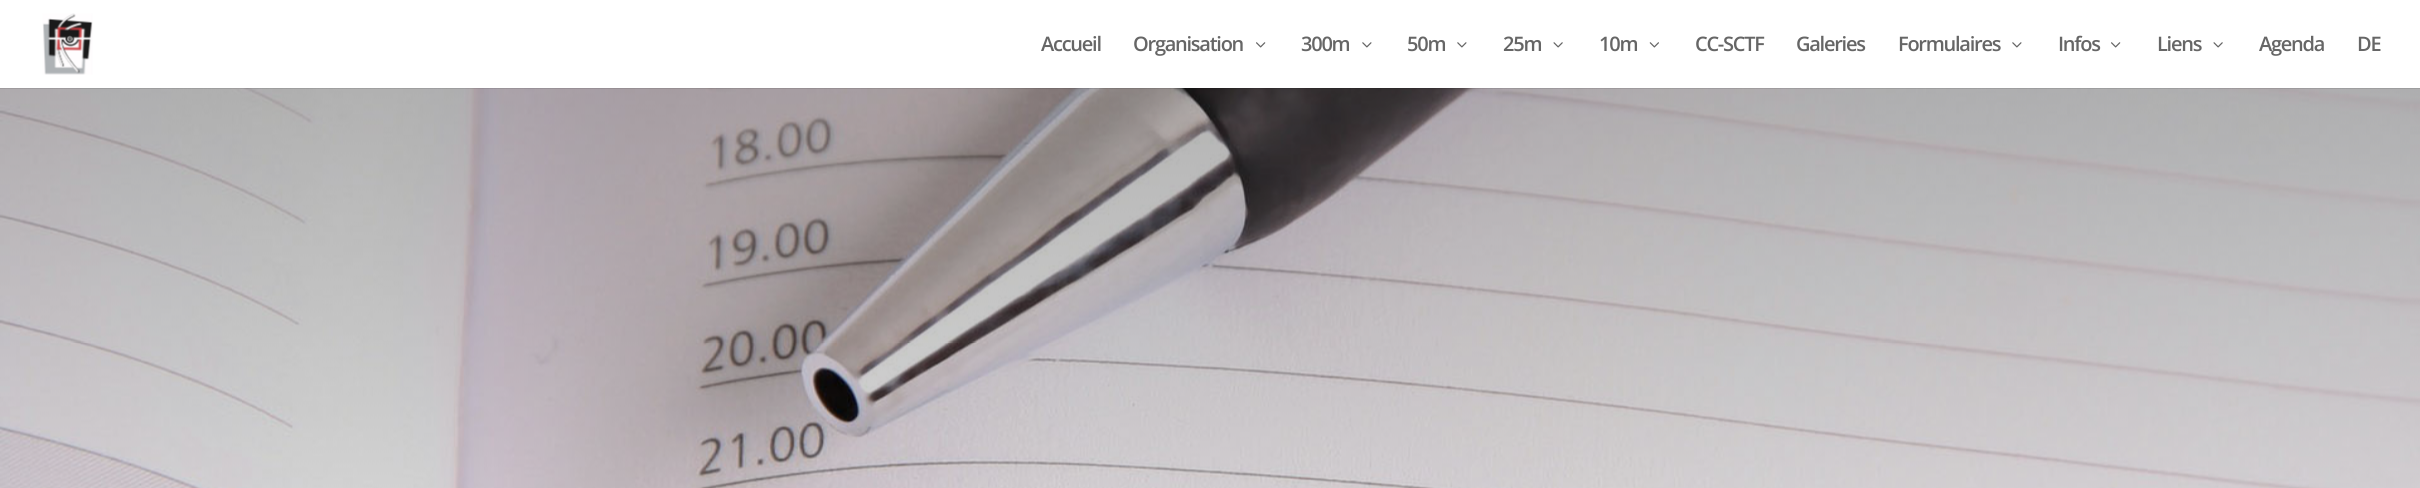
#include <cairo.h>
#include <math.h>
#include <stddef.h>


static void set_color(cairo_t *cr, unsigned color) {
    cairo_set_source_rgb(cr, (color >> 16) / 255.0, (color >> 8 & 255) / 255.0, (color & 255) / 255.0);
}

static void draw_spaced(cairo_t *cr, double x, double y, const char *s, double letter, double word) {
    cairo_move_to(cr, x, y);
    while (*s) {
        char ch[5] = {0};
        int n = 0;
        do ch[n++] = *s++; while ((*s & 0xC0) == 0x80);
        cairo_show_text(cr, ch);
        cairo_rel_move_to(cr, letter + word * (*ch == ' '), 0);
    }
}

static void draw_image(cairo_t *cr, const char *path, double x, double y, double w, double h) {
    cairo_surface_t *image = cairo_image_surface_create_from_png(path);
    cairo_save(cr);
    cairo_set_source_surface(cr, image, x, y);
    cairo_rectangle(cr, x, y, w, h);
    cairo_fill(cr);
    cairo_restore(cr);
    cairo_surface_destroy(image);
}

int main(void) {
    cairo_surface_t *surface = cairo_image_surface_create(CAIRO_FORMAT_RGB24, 2420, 488);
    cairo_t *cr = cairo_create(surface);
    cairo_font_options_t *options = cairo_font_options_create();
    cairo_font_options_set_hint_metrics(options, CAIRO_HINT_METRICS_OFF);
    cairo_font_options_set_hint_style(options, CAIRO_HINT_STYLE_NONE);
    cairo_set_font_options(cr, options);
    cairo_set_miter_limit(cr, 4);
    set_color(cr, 0xFFFFFF);
    cairo_paint(cr);
    draw_image(cr, "assets/img6.png", 0, 88, 2420, 400);
    cairo_set_source_rgba(cr, 0, 0, 0, 0.1);
    cairo_rectangle(cr, 0, 88, 2420, 1);
    cairo_fill(cr);
    draw_image(cr, "assets/img1.png", 42, 13, 51, 62);
    cairo_select_font_face(cr, "Open Sans SemiBold", CAIRO_FONT_SLANT_NORMAL, CAIRO_FONT_WEIGHT_NORMAL);
    cairo_set_font_size(cr, 20);
    set_color(cr, 0x666666);
    draw_spaced(cr, 1041, 51, "Accueil", -1.25, 0);
    draw_spaced(cr, 1133, 51, "Organisation", -1.25, 0);
    draw_image(cr, "assets/img2.png", 1256, 42, 10, 6);
    draw_spaced(cr, 1301, 51, "300m", -1.25, 0);
    draw_image(cr, "assets/img3.png", 1362, 42, 10, 6);
    draw_spaced(cr, 1407, 51, "50m", -1.25, 0);
    draw_image(cr, "assets/img3.png", 1457, 42, 10, 6);
    draw_spaced(cr, 1503, 51, "25m", -1.25, 0);
    draw_image(cr, "assets/img4.png", 1553, 42, 10, 6);
    draw_spaced(cr, 1599, 51, "10m", -1.25, 0);
    draw_image(cr, "assets/img5.png", 1649, 42, 10, 6);
    draw_spaced(cr, 1695, 51, "CC-SCTF", -1.25, 0);
    draw_spaced(cr, 1796, 51, "Galeries", -1.25, 0);
    draw_spaced(cr, 1898, 51, "Formulaires", -1.25, 0);
    draw_image(cr, "assets/img3.png", 2012, 42, 10, 6);
    draw_spaced(cr, 2058, 51, "Infos", -1.25, 0);
    draw_image(cr, "assets/img2.png", 2111, 42, 10, 6);
    draw_spaced(cr, 2157, 51, "Liens", -1.25, 0);
    draw_image(cr, "assets/img4.png", 2213, 42, 10, 6);
    draw_spaced(cr, 2259, 51, "Agenda", -1.25, 0);
    draw_spaced(cr, 2357, 51, "DE", -1.25, 0);
    cairo_surface_write_to_png(surface, "output.png");
    cairo_font_options_destroy(options);
    cairo_destroy(cr);
    cairo_surface_destroy(surface);
    return 0;
}
